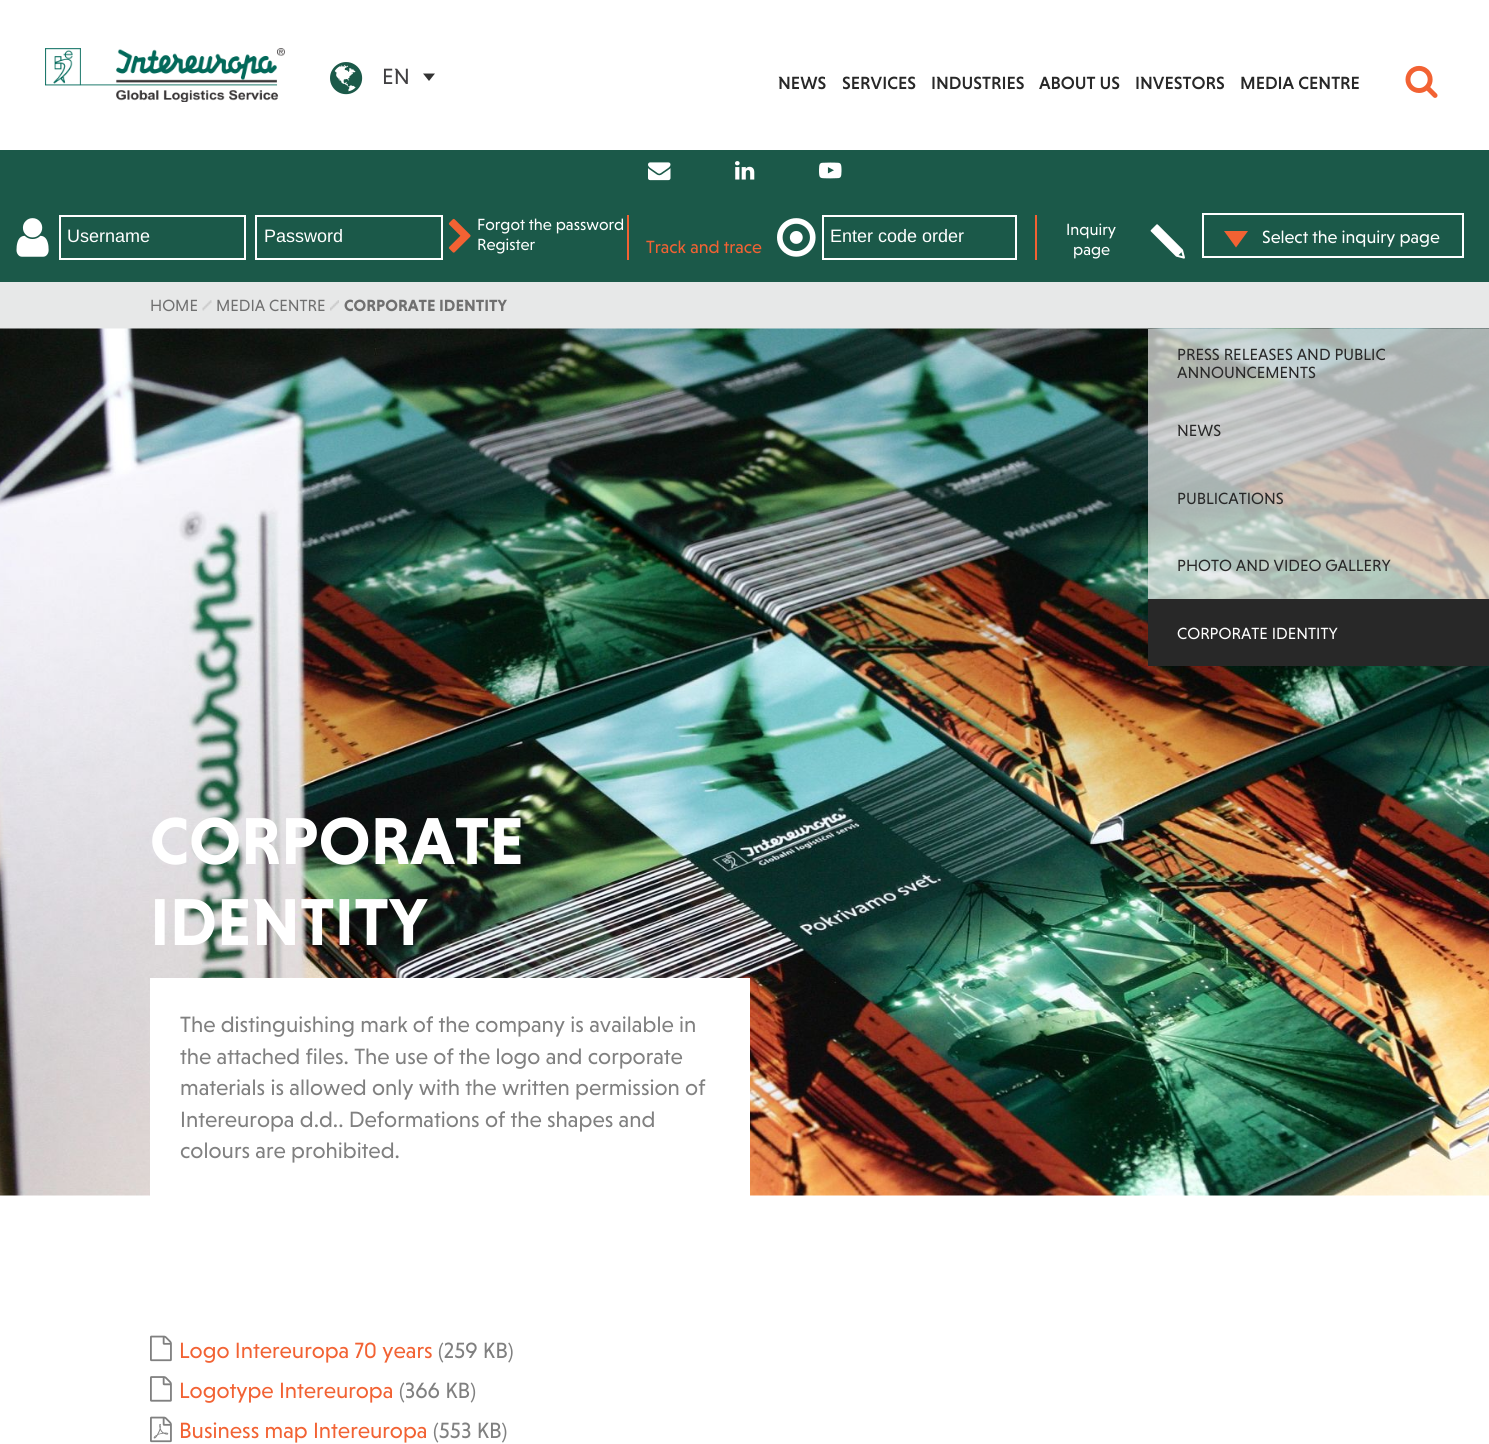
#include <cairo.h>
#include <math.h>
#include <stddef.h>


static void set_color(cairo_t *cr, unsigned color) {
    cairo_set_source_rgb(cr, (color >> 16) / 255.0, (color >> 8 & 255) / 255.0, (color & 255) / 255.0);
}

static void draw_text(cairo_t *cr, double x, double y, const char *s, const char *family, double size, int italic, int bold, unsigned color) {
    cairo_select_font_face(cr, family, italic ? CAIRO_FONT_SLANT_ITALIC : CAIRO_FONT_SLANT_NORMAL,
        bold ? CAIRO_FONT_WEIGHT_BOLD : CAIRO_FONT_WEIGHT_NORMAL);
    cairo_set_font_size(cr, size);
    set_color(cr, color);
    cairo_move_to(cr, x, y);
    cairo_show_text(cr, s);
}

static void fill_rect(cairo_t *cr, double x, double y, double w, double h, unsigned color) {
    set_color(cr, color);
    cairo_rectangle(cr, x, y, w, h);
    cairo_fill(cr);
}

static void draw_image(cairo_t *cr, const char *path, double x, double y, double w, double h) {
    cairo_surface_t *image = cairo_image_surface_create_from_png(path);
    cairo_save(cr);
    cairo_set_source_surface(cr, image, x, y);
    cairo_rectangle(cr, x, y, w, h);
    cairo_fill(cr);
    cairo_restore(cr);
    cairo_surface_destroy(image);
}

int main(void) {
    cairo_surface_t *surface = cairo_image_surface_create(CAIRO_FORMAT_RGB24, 1489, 1444);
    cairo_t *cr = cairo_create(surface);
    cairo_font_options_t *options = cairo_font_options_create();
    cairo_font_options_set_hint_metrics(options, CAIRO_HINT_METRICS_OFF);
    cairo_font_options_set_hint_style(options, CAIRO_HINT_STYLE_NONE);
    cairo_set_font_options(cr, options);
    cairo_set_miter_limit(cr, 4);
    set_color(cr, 0xFFFFFF);
    cairo_paint(cr);
    draw_image(cr, "assets/img1.png", 45, 48, 240, 54);
    draw_image(cr, "assets/img2.png", 330, 62, 33, 33);
    draw_text(cr, 382, 84, "EN", "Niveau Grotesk", 22.5, 0, 0, 0x414042);
    set_color(cr, 0x333333);
    cairo_new_path(cr);
    cairo_move_to(cr, 423, 73.5);
    cairo_line_to(cr, 435, 73.5);
    cairo_line_to(cr, 429, 81);
    cairo_close_path(cr);
    cairo_fill(cr);
    draw_text(cr, 778, 89, "NEWS", "Niveau Grotesk Medium", 18, 0, 0, 0x282828);
    draw_text(cr, 842, 89, "SERVICES", "Niveau Grotesk Medium", 18, 0, 0, 0x282828);
    draw_text(cr, 931, 89, "INDUSTRIES", "Niveau Grotesk Medium", 18, 0, 0, 0x282828);
    draw_text(cr, 1039, 89, "ABOUT US", "Niveau Grotesk Medium", 18, 0, 0, 0x282828);
    draw_text(cr, 1135, 89, "INVESTORS", "Niveau Grotesk Medium", 18, 0, 0, 0x282828);
    draw_text(cr, 1240, 89, "MEDIA CENTRE", "Niveau Grotesk Medium", 18, 0, 0, 0x282828);
    draw_image(cr, "assets/img3.png", 1405, 65, 33, 33);
    fill_rect(cr, 0, 150, 1489, 132, 0x1B5949);
    draw_image(cr, "assets/img4.png", 648, 162, 23, 19);
    draw_image(cr, "assets/img5.png", 735, 161, 20, 19);
    draw_image(cr, "assets/img6.png", 819, 162, 23, 17);
    fill_rect(cr, 627, 215, 2, 45, 0xF26233);
    draw_image(cr, "assets/img7.png", 16, 218, 33, 39);
    cairo_rectangle(cr, 60, 216, 185, 43);
    set_color(cr, 0xFFFFFF);
    cairo_stroke(cr);
    draw_text(cr, 67, 242, "Username", "Liberation Sans", 18, 0, 0, 0xFFFFFF);
    cairo_rectangle(cr, 256, 216, 186, 43);
    cairo_stroke(cr);
    draw_text(cr, 264, 242, "Password", "Liberation Sans", 18, 0, 0, 0xFFFFFF);
    draw_image(cr, "assets/img8.png", 448, 218, 23, 35);
    draw_text(cr, 477, 230, "Forgot the password", "Niveau Grotesk", 16.5, 0, 0, 0xFFFFFF);
    draw_text(cr, 477, 250, "Register", "Niveau Grotesk", 16.5, 0, 0, 0xFFFFFF);
    fill_rect(cr, 1035, 215, 2, 45, 0xF26233);
    draw_image(cr, "assets/img9.png", 777, 218, 39, 39);
    cairo_rectangle(cr, 823, 216, 193, 43);
    set_color(cr, 0xFFFFFF);
    cairo_stroke(cr);
    draw_text(cr, 830, 242, "Enter code order", "Liberation Sans", 18, 0, 0, 0xFFFFFF);
    draw_text(cr, 646, 253, "Track and trace", "Niveau Grotesk", 18, 0, 0, 0xF26233);
    draw_text(cr, 1066, 235, "Inquiry", "Niveau Grotesk", 16.5, 0, 0, 0xFFFFFF);
    draw_text(cr, 1073, 255, "page", "Niveau Grotesk", 16.5, 0, 0, 0xFFFFFF);
    draw_image(cr, "assets/img10.png", 1150, 224, 35, 35);
    cairo_rectangle(cr, 1203, 214, 260, 43);
    cairo_stroke(cr);
    set_color(cr, 0xF26233);
    cairo_new_path(cr);
    cairo_move_to(cr, 1224, 231);
    cairo_line_to(cr, 1248, 231);
    cairo_line_to(cr, 1236, 247.5);
    cairo_close_path(cr);
    cairo_fill(cr);
    draw_text(cr, 1262, 243, "Select the inquiry page", "Niveau Grotesk", 18, 0, 0, 0xFFFFFF);
    fill_rect(cr, 0, 282, 1489, 47, 0xE7E8E8);
    draw_image(cr, "assets/img11.png", 202, 300, 10, 11);
    draw_text(cr, 150, 311, "HOME", "Niveau Grotesk", 16.5, 0, 0, 0x707070);
    draw_image(cr, "assets/img12.png", 330, 300, 9, 11);
    draw_text(cr, 216, 311, "MEDIA CENTRE", "Niveau Grotesk", 16.5, 0, 0, 0x707070);
    draw_text(cr, 344, 311, "CORPORATE IDENTITY", "Niveau Grotesk", 16.5, 0, 1, 0x707070);
    draw_image(cr, "assets/img13.png", 0, 328, 1489, 868);
    cairo_set_source_rgba(cr, 0.933, 0.933, 0.933, 0.7);
    cairo_rectangle(cr, 1148, 329, 341, 67);
    cairo_fill(cr);
    draw_text(cr, 1177, 360, "PRESS RELEASES AND PUBLIC", "Niveau Grotesk", 16.5, 0, 0, 0x282828);
    draw_text(cr, 1177, 378, "ANNOUNCEMENTS", "Niveau Grotesk", 16.5, 0, 0, 0x282828);
    cairo_set_source_rgba(cr, 0.933, 0.933, 0.933, 0.7);
    cairo_rectangle(cr, 1148, 396, 341, 68);
    cairo_fill(cr);
    draw_text(cr, 1177, 436, "NEWS", "Niveau Grotesk", 16.5, 0, 0, 0x282828);
    cairo_set_source_rgba(cr, 0.933, 0.933, 0.933, 0.7);
    cairo_rectangle(cr, 1148, 464, 341, 67);
    cairo_fill(cr);
    draw_text(cr, 1177, 504, "PUBLICATIONS", "Niveau Grotesk", 16.5, 0, 0, 0x282828);
    cairo_set_source_rgba(cr, 0.933, 0.933, 0.933, 0.7);
    cairo_rectangle(cr, 1148, 531, 341, 68);
    cairo_fill(cr);
    draw_text(cr, 1177, 571, "PHOTO AND VIDEO GALLERY", "Niveau Grotesk", 16.5, 0, 0, 0x282828);
    fill_rect(cr, 1148, 599, 341, 67, 0x282828);
    draw_text(cr, 1177, 639, "CORPORATE IDENTITY", "Niveau Grotesk", 16.5, 0, 0, 0xFFFFFF);
    draw_text(cr, 150, 864, "CORPORATE", "Niveau Grotesk", 67.5, 0, 1, 0xFFFFFF);
    draw_text(cr, 150, 945, "IDENTITY", "Niveau Grotesk", 67.5, 0, 1, 0xFFFFFF);
    fill_rect(cr, 150, 978, 600, 218, 0xFFFFFF);
    draw_text(cr, 180, 1032, "The distinguishing mark of the company is available in", "Niveau Grotesk", 22.5, 0, 0, 0x808080);
    draw_text(cr, 180, 1064, "the attached files. The use of the logo and corporate", "Niveau Grotesk", 22.5, 0, 0, 0x808080);
    draw_text(cr, 180, 1095, "materials is allowed only with the written permission of", "Niveau Grotesk", 22.5, 0, 0, 0x808080);
    draw_text(cr, 180, 1127, "Intereuropa d.d.. Deformations of the shapes and", "Niveau Grotesk", 22.5, 0, 0, 0x808080);
    draw_text(cr, 180, 1158, "colours are prohibited.", "Niveau Grotesk", 22.5, 0, 0, 0x808080);
    draw_image(cr, "assets/img14.png", 150, 1335, 22, 27);
    draw_text(cr, 179, 1358, "Logo Intereuropa 70 years", "Niveau Grotesk", 22.5, 0, 0, 0xF26233);
    draw_text(cr, 438, 1358, "(259 KB)", "Niveau Grotesk", 22.5, 0, 0, 0x808080);
    draw_image(cr, "assets/img15.png", 150, 1376, 22, 26);
    draw_text(cr, 179, 1398, "Logotype Intereuropa", "Niveau Grotesk", 22.5, 0, 0, 0xF26233);
    draw_text(cr, 399, 1398, "(366 KB)", "Niveau Grotesk", 22.5, 0, 0, 0x808080);
    draw_image(cr, "assets/img16.png", 150, 1416, 22, 27);
    draw_text(cr, 179, 1438, "Business map Intereuropa", "Niveau Grotesk", 22.5, 0, 0, 0xF26233);
    draw_text(cr, 433, 1438, "(553 KB)", "Niveau Grotesk", 22.5, 0, 0, 0x808080);
    cairo_surface_write_to_png(surface, "output.png");
    cairo_font_options_destroy(options);
    cairo_destroy(cr);
    cairo_surface_destroy(surface);
    return 0;
}
